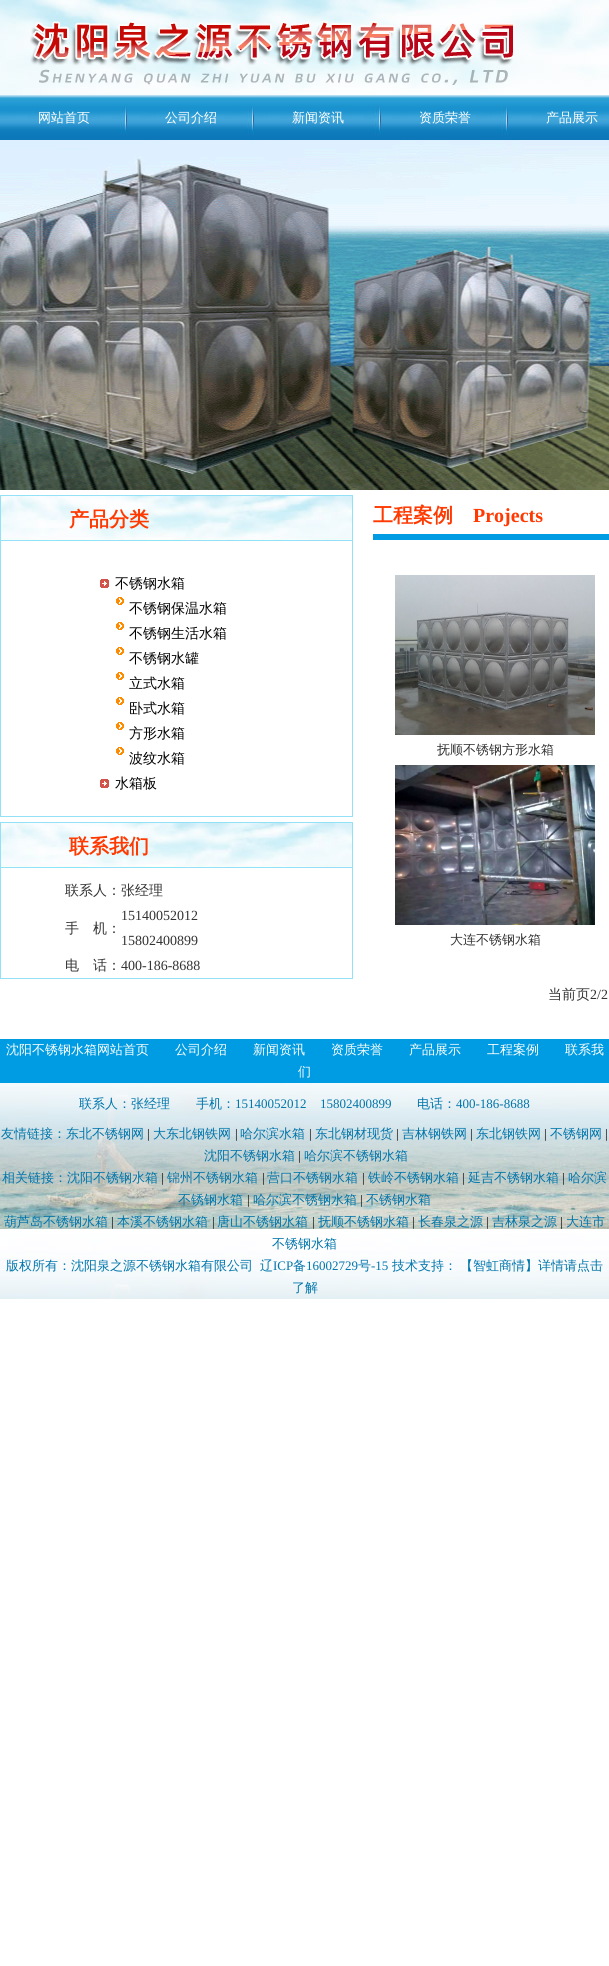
#include <cairo.h>
#include <math.h>
#include <stddef.h>


static void set_color(cairo_t *cr, unsigned color) {
    cairo_set_source_rgb(cr, (color >> 16) / 255.0, (color >> 8 & 255) / 255.0, (color & 255) / 255.0);
}

static void draw_text(cairo_t *cr, double x, double y, const char *s, const char *family, double size, int italic, int bold, unsigned color) {
    cairo_select_font_face(cr, family, italic ? CAIRO_FONT_SLANT_ITALIC : CAIRO_FONT_SLANT_NORMAL,
        bold ? CAIRO_FONT_WEIGHT_BOLD : CAIRO_FONT_WEIGHT_NORMAL);
    cairo_set_font_size(cr, size);
    set_color(cr, color);
    cairo_move_to(cr, x, y);
    cairo_show_text(cr, s);
}

static void draw_spaced(cairo_t *cr, double x, double y, const char *s, double letter, double word) {
    cairo_move_to(cr, x, y);
    while (*s) {
        char ch[5] = {0};
        int n = 0;
        do ch[n++] = *s++; while ((*s & 0xC0) == 0x80);
        cairo_show_text(cr, ch);
        cairo_rel_move_to(cr, letter + word * (*ch == ' '), 0);
    }
}

static void fill_rect(cairo_t *cr, double x, double y, double w, double h, unsigned color) {
    set_color(cr, color);
    cairo_rectangle(cr, x, y, w, h);
    cairo_fill(cr);
}

static void draw_image(cairo_t *cr, const char *path, double x, double y, double w, double h) {
    cairo_surface_t *image = cairo_image_surface_create_from_png(path);
    cairo_save(cr);
    cairo_set_source_surface(cr, image, x, y);
    cairo_rectangle(cr, x, y, w, h);
    cairo_fill(cr);
    cairo_restore(cr);
    cairo_surface_destroy(image);
}

int main(void) {
    cairo_surface_t *surface = cairo_image_surface_create(CAIRO_FORMAT_RGB24, 609, 1966);
    cairo_t *cr = cairo_create(surface);
    cairo_font_options_t *options = cairo_font_options_create();
    cairo_font_options_set_hint_metrics(options, CAIRO_HINT_METRICS_OFF);
    cairo_font_options_set_hint_style(options, CAIRO_HINT_STYLE_NONE);
    cairo_set_font_options(cr, options);
    cairo_set_miter_limit(cr, 4);
    set_color(cr, 0xFFFFFF);
    cairo_paint(cr);
    draw_image(cr, "assets/img1.png", 0, 0, 609, 95);
    draw_image(cr, "assets/img2.png", 30, 21, 485, 64);
    draw_image(cr, "assets/img3.png", 0, 95, 609, 45);
    draw_image(cr, "assets/img4.png", 120, 106, 7, 29);
    draw_text(cr, 38, 122, "网站首页", "WenQuanYi Zen Hei Medium", 13, 0, 0, 0xFFFFFF);
    draw_image(cr, "assets/img4.png", 247, 106, 7, 29);
    draw_text(cr, 165, 122, "公司介绍", "WenQuanYi Zen Hei Medium", 13, 0, 0, 0xFFFFFF);
    draw_image(cr, "assets/img4.png", 374, 106, 7, 29);
    draw_text(cr, 292, 122, "新闻资讯", "WenQuanYi Zen Hei Medium", 13, 0, 0, 0xFFFFFF);
    draw_image(cr, "assets/img4.png", 501, 106, 7, 29);
    draw_text(cr, 419, 122, "资质荣誉", "WenQuanYi Zen Hei Medium", 13, 0, 0, 0xFFFFFF);
    draw_text(cr, 546, 122, "产品展示", "WenQuanYi Zen Hei Medium", 13, 0, 0, 0xFFFFFF);
    draw_image(cr, "assets/img5.png", 0, 140, 609, 350);
    cairo_rectangle(cr, 0.5, 495.5, 352, 321);
    set_color(cr, 0x92E1F6);
    cairo_set_line_width(cr, 1);
    cairo_stroke(cr);
    draw_image(cr, "assets/img6.png", 1, 496, 351, 45);
    draw_text(cr, 69, 526, "产品分类", "WenQuanYi Zen Hei", 20, 0, 1, 0xFF3900);
    draw_image(cr, "assets/img7.png", 100, 579, 9, 9);
    draw_text(cr, 115, 588, "不锈钢水箱", "WenQuanYi Zen Hei Medium", 14, 0, 0, 0x000000);
    draw_image(cr, "assets/img8.png", 116, 597, 8, 8);
    draw_text(cr, 129, 613, "不锈钢保温水箱", "WenQuanYi Zen Hei Medium", 14, 0, 0, 0x000000);
    draw_image(cr, "assets/img8.png", 116, 622, 8, 8);
    draw_text(cr, 129, 638, "不锈钢生活水箱", "WenQuanYi Zen Hei Medium", 14, 0, 0, 0x000000);
    draw_image(cr, "assets/img8.png", 116, 647, 8, 8);
    draw_text(cr, 129, 663, "不锈钢水罐", "WenQuanYi Zen Hei Medium", 14, 0, 0, 0x000000);
    draw_image(cr, "assets/img8.png", 116, 672, 8, 8);
    draw_text(cr, 129, 688, "立式水箱", "WenQuanYi Zen Hei Medium", 14, 0, 0, 0x000000);
    draw_image(cr, "assets/img8.png", 116, 697, 8, 8);
    draw_text(cr, 129, 713, "卧式水箱", "WenQuanYi Zen Hei Medium", 14, 0, 0, 0x000000);
    draw_image(cr, "assets/img8.png", 116, 722, 8, 8);
    draw_text(cr, 129, 738, "方形水箱", "WenQuanYi Zen Hei Medium", 14, 0, 0, 0x000000);
    draw_image(cr, "assets/img8.png", 116, 747, 8, 8);
    draw_text(cr, 129, 763, "波纹水箱", "WenQuanYi Zen Hei Medium", 14, 0, 0, 0x000000);
    draw_image(cr, "assets/img7.png", 100, 779, 9, 9);
    draw_text(cr, 115, 788, "水箱板", "WenQuanYi Zen Hei Medium", 14, 0, 0, 0x000000);
    cairo_rectangle(cr, 0.5, 822.5, 352, 156);
    set_color(cr, 0x92E1F6);
    cairo_stroke(cr);
    draw_image(cr, "assets/img6.png", 1, 823, 351, 45);
    draw_text(cr, 69, 853, "联系我们", "WenQuanYi Zen Hei", 20, 0, 1, 0xFF3900);
    draw_text(cr, 65, 895, "联系人：张经理", "WenQuanYi Zen Hei Medium", 14, 0, 0, 0x333333);
    draw_text(cr, 65, 933, "手　机：", "WenQuanYi Zen Hei Medium", 14, 0, 0, 0x333333);
    draw_text(cr, 121, 920, "15140052012", "Liberation Serif", 14, 0, 0, 0x333333);
    draw_text(cr, 121, 945, "15802400899", "Liberation Serif", 14, 0, 0, 0x333333);
    draw_text(cr, 65, 970, "电　话：", "WenQuanYi Zen Hei Medium", 14, 0, 0, 0x333333);
    draw_text(cr, 121, 970, "400-186-8688", "Liberation Serif", 14, 0, 0, 0x333333);
    draw_text(cr, 373, 522, "工程案例", "WenQuanYi Zen Hei", 20, 0, 1, 0xFF3900);
    draw_text(cr, 473, 522, "Projects", "Liberation Serif", 20, 0, 1, 0xFF3900);
    fill_rect(cr, 373, 534, 236, 6, 0x009CE3);
    draw_image(cr, "assets/img9.png", 395, 575, 200, 160);
    draw_text(cr, 437, 754, "抚顺不锈钢方形水箱", "WenQuanYi Zen Hei Medium", 13, 0, 0, 0x333333);
    draw_image(cr, "assets/img10.png", 395, 765, 200, 160);
    draw_text(cr, 450, 944, "大连不锈钢水箱", "WenQuanYi Zen Hei Medium", 13, 0, 0, 0x333333);
    draw_text(cr, 548, 999, "当前页", "WenQuanYi Zen Hei Medium", 14, 0, 0, 0x333333);
    draw_text(cr, 590, 999, "2/2", "Liberation Serif", 14, 0, 0, 0x333333);
    draw_image(cr, "assets/img11.png", 0, 1083, 609, 216);
    fill_rect(cr, 0, 1039, 609, 44, 0x009CE3);
    draw_text(cr, 6, 1054, "沈阳不锈钢水箱网站首页", "WenQuanYi Zen Hei Medium", 13, 0, 0, 0xFFFFFF);
    draw_text(cr, 175, 1054, "公司介绍", "WenQuanYi Zen Hei Medium", 13, 0, 0, 0xFFFFFF);
    draw_text(cr, 253, 1054, "新闻资讯", "WenQuanYi Zen Hei Medium", 13, 0, 0, 0xFFFFFF);
    draw_text(cr, 331, 1054, "资质荣誉", "WenQuanYi Zen Hei Medium", 13, 0, 0, 0xFFFFFF);
    draw_text(cr, 409, 1054, "产品展示", "WenQuanYi Zen Hei Medium", 13, 0, 0, 0xFFFFFF);
    draw_text(cr, 487, 1054, "工程案例", "WenQuanYi Zen Hei Medium", 13, 0, 0, 0xFFFFFF);
    draw_text(cr, 565, 1054, "联系我", "WenQuanYi Zen Hei Medium", 13, 0, 0, 0xFFFFFF);
    draw_text(cr, 298, 1076, "们", "WenQuanYi Zen Hei Medium", 13, 0, 0, 0xFFFFFF);
    draw_text(cr, 79, 1108, "联系人：张经理　　手机：", "WenQuanYi Zen Hei Medium", 13, 0, 0, 0x0075AA);
    draw_text(cr, 235, 1108, "15140052012", "Liberation Serif", 13, 0, 0, 0x0075AA);
    draw_text(cr, 320, 1108, "15802400899", "Liberation Serif", 13, 0, 0, 0x0075AA);
    draw_text(cr, 417, 1108, "电话：", "WenQuanYi Zen Hei Medium", 13, 0, 0, 0x0075AA);
    draw_text(cr, 456, 1108, "400-186-8688", "Liberation Serif", 13, 0, 0, 0x0075AA);
    draw_text(cr, 1, 1138, "友情链接：东北不锈钢网", "WenQuanYi Zen Hei Medium", 13, 0, 0, 0x0075AA);
    draw_text(cr, 147, 1138, "|", "Liberation Serif", 13, 0, 0, 0x000000);
    draw_text(cr, 153, 1138, "大东北钢铁网", "WenQuanYi Zen Hei Medium", 13, 0, 0, 0x0075AA);
    draw_text(cr, 235, 1138, "|", "Liberation Serif", 13, 0, 0, 0x000000);
    draw_text(cr, 240, 1138, "哈尔滨水箱", "WenQuanYi Zen Hei Medium", 13, 0, 0, 0x0075AA);
    draw_text(cr, 309, 1138, "|", "Liberation Serif", 13, 0, 0, 0x000000);
    draw_text(cr, 315, 1138, "东北钢材现货", "WenQuanYi Zen Hei Medium", 13, 0, 0, 0x0075AA);
    draw_text(cr, 396, 1138, "|", "Liberation Serif", 13, 0, 0, 0x000000);
    draw_text(cr, 402, 1138, "吉林钢铁网", "WenQuanYi Zen Hei Medium", 13, 0, 0, 0x0075AA);
    draw_text(cr, 470, 1138, "|", "Liberation Serif", 13, 0, 0, 0x000000);
    draw_text(cr, 476, 1138, "东北钢铁网", "WenQuanYi Zen Hei Medium", 13, 0, 0, 0x0075AA);
    draw_text(cr, 544, 1138, "|", "Liberation Serif", 13, 0, 0, 0x000000);
    draw_text(cr, 550, 1138, "不锈钢网", "WenQuanYi Zen Hei Medium", 13, 0, 0, 0x0075AA);
    draw_text(cr, 605, 1138, "|", "Liberation Serif", 13, 0, 0, 0x000000);
    draw_text(cr, 204, 1160, "沈阳不锈钢水箱", "WenQuanYi Zen Hei Medium", 13, 0, 0, 0x0075AA);
    draw_text(cr, 298, 1160, "|", "Liberation Serif", 13, 0, 0, 0x000000);
    draw_text(cr, 304, 1160, "哈尔滨不锈钢水箱", "WenQuanYi Zen Hei Medium", 13, 0, 0, 0x0075AA);
    draw_text(cr, 2, 1182, "相关链接：沈阳不锈钢水箱", "WenQuanYi Zen Hei Medium", 13, 0, 0, 0x0075AA);
    draw_text(cr, 161, 1182, "|", "Liberation Serif", 13, 0, 0, 0x000000);
    draw_text(cr, 167, 1182, "锦州不锈钢水箱", "WenQuanYi Zen Hei Medium", 13, 0, 0, 0x0075AA);
    draw_text(cr, 262, 1182, "|", "Liberation Serif", 13, 0, 0, 0x000000);
    draw_text(cr, 267, 1182, "营口不锈钢水箱", "WenQuanYi Zen Hei Medium", 13, 0, 0, 0x0075AA);
    draw_text(cr, 362, 1182, "|", "Liberation Serif", 13, 0, 0, 0x000000);
    draw_text(cr, 368, 1182, "铁岭不锈钢水箱", "WenQuanYi Zen Hei Medium", 13, 0, 0, 0x0075AA);
    draw_text(cr, 462, 1182, "|", "Liberation Serif", 13, 0, 0, 0x000000);
    draw_text(cr, 468, 1182, "延吉不锈钢水箱", "WenQuanYi Zen Hei Medium", 13, 0, 0, 0x0075AA);
    draw_text(cr, 562, 1182, "|", "Liberation Serif", 13, 0, 0, 0x000000);
    draw_text(cr, 568, 1182, "哈尔滨", "WenQuanYi Zen Hei Medium", 13, 0, 0, 0x0075AA);
    draw_text(cr, 178, 1204, "不锈钢水箱", "WenQuanYi Zen Hei Medium", 13, 0, 0, 0x0075AA);
    draw_text(cr, 247, 1204, "|", "Liberation Serif", 13, 0, 0, 0x000000);
    draw_text(cr, 253, 1204, "哈尔滨不锈钢水箱", "WenQuanYi Zen Hei Medium", 13, 0, 0, 0x0075AA);
    draw_text(cr, 360, 1204, "|", "Liberation Serif", 13, 0, 0, 0x000000);
    draw_text(cr, 366, 1204, "不锈钢水箱", "WenQuanYi Zen Hei Medium", 13, 0, 0, 0x0075AA);
    draw_text(cr, 4, 1226, "葫芦岛不锈钢水箱", "WenQuanYi Zen Hei Medium", 13, 0, 0, 0x0075AA);
    draw_text(cr, 111, 1226, "|", "Liberation Serif", 13, 0, 0, 0x000000);
    draw_text(cr, 117, 1226, "本溪不锈钢水箱", "WenQuanYi Zen Hei Medium", 13, 0, 0, 0x0075AA);
    draw_text(cr, 212, 1226, "|", "Liberation Serif", 13, 0, 0, 0x000000);
    draw_text(cr, 217, 1226, "唐山不锈钢水箱", "WenQuanYi Zen Hei Medium", 13, 0, 0, 0x0075AA);
    draw_text(cr, 312, 1226, "|", "Liberation Serif", 13, 0, 0, 0x000000);
    draw_text(cr, 318, 1226, "抚顺不锈钢水箱", "WenQuanYi Zen Hei Medium", 13, 0, 0, 0x0075AA);
    draw_text(cr, 412, 1226, "|", "Liberation Serif", 13, 0, 0, 0x000000);
    draw_text(cr, 418, 1226, "长春泉之源", "WenQuanYi Zen Hei Medium", 13, 0, 0, 0x0075AA);
    draw_text(cr, 486, 1226, "|", "Liberation Serif", 13, 0, 0, 0x000000);
    draw_text(cr, 492, 1226, "吉林泉之源", "WenQuanYi Zen Hei Medium", 13, 0, 0, 0x0075AA);
    draw_text(cr, 560, 1226, "|", "Liberation Serif", 13, 0, 0, 0x000000);
    draw_text(cr, 566, 1226, "大连市", "WenQuanYi Zen Hei Medium", 13, 0, 0, 0x0075AA);
    draw_text(cr, 272, 1248, "不锈钢水箱", "WenQuanYi Zen Hei Medium", 13, 0, 0, 0x0075AA);
    draw_text(cr, 6, 1270, "版权所有：沈阳泉之源不锈钢水箱有限公司", "WenQuanYi Zen Hei Medium", 13, 0, 0, 0x0075AA);
    draw_text(cr, 260, 1270, "辽", "WenQuanYi Zen Hei Medium", 13, 0, 0, 0x0075AA);
    draw_text(cr, 273, 1270, "ICP", "Liberation Serif", 13, 0, 0, 0x0075AA);
    draw_text(cr, 293, 1270, "备", "WenQuanYi Zen Hei Medium", 13, 0, 0, 0x0075AA);
    draw_text(cr, 306, 1270, "16002729", "Liberation Serif", 13, 0, 0, 0x0075AA);
    draw_text(cr, 358, 1270, "号", "WenQuanYi Zen Hei Medium", 13, 0, 0, 0x0075AA);
    draw_text(cr, 371, 1270, "-15", "Liberation Serif", 13, 0, 0, 0x0075AA);
    cairo_select_font_face(cr, "WenQuanYi Zen Hei Medium", CAIRO_FONT_SLANT_NORMAL, CAIRO_FONT_WEIGHT_NORMAL);
    draw_spaced(cr, 392, 1270, "技术支持： 【智虹商情】详情请点击", 0, -1);
    draw_text(cr, 292, 1292, "了解", "WenQuanYi Zen Hei Medium", 13, 0, 0, 0x0075AA);
    cairo_surface_write_to_png(surface, "output.png");
    cairo_font_options_destroy(options);
    cairo_destroy(cr);
    cairo_surface_destroy(surface);
    return 0;
}
